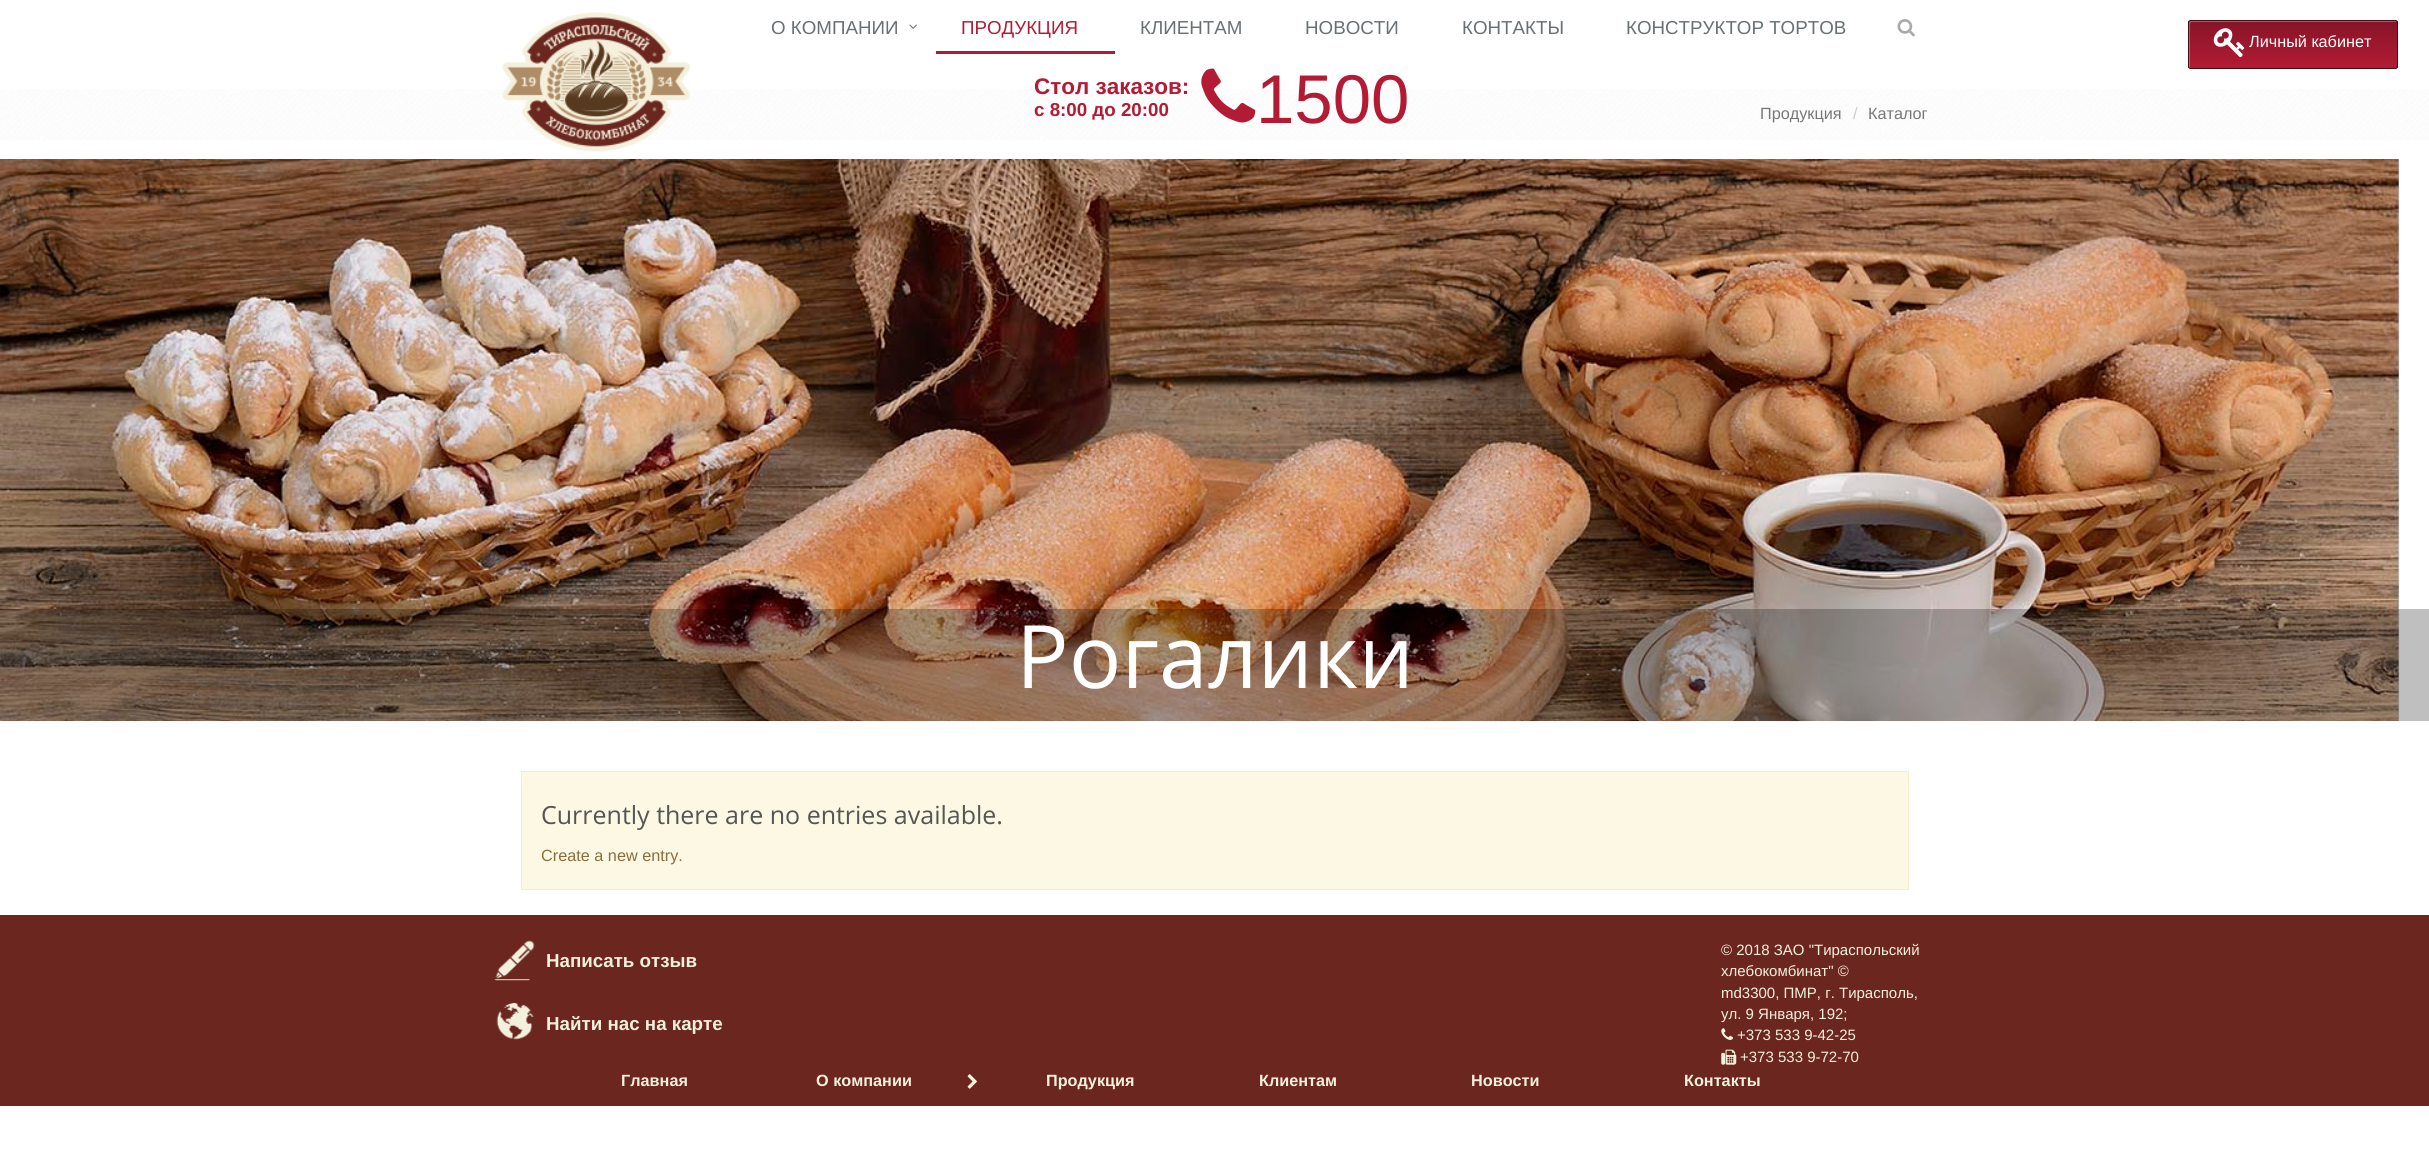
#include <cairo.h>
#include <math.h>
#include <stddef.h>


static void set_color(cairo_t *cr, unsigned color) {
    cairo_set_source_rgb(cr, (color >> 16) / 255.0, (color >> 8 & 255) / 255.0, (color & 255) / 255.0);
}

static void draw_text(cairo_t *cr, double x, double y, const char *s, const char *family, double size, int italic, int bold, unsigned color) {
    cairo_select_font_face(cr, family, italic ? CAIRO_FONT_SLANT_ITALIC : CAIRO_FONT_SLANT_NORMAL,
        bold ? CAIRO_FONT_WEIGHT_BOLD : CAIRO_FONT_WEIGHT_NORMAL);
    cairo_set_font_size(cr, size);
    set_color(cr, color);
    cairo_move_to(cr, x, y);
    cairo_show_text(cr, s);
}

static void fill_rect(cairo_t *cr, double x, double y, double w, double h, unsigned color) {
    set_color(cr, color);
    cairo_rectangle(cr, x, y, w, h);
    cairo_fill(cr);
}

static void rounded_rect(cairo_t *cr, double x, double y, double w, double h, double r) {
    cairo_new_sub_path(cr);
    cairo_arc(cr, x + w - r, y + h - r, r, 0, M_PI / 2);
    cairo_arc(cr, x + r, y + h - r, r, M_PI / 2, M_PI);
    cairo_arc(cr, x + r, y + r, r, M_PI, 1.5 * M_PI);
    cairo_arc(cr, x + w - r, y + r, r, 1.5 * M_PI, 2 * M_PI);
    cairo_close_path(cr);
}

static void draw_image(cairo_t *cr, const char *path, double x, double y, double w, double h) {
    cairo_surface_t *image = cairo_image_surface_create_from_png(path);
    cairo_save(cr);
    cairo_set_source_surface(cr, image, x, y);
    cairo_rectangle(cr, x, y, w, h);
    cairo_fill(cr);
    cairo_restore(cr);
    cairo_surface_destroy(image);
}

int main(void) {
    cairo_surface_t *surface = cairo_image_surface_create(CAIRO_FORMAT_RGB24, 2429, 1161);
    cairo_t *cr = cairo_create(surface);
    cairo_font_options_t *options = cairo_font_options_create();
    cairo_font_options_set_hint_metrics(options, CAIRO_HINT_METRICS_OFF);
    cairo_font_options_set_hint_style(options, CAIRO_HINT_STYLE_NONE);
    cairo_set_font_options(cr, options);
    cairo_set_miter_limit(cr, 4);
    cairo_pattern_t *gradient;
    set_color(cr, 0xFFFFFF);
    cairo_paint(cr);
    draw_text(cr, 771, 34, "О КОМПАНИИ", "Liberation Sans", 18.75, 0, 0, 0x687074);
    draw_image(cr, "assets/img1.png", 909, 24, 8, 5);
    fill_rect(cr, 936, 51, 179, 3, 0xB31B34);
    draw_text(cr, 961, 34, "ПРОДУКЦИЯ", "Liberation Sans", 18.75, 0, 0, 0xB31B34);
    draw_text(cr, 1140, 34, "КЛИЕНТАМ", "Liberation Sans", 18.75, 0, 0, 0x687074);
    draw_text(cr, 1305, 34, "НОВОСТИ", "Liberation Sans", 18.75, 0, 0, 0x687074);
    draw_text(cr, 1462, 34, "КОНТАКТЫ", "Liberation Sans", 18.75, 0, 0, 0x687074);
    draw_text(cr, 1626, 34, "КОНСТРУКТОР ТОРТОВ", "Liberation Sans", 18.75, 0, 0, 0x687074);
    draw_image(cr, "assets/img2.png", 1897, 19, 18, 18);
    draw_image(cr, "assets/img5.png", 0, 89, 2429, 51);
    draw_image(cr, "assets/img3.png", 502, 12, 188, 140);
    draw_text(cr, 1034, 94, "Стол заказов:", "Liberation Sans", 22.5, 0, 1, 0xB31B34);
    draw_text(cr, 1034, 116, "с 8:00 до 20:00", "Liberation Sans", 18.75, 0, 1, 0xB31B34);
    draw_image(cr, "assets/img4.png", 1201, 68, 55, 55);
    draw_text(cr, 1256, 123, "1500", "Liberation Sans", 69, 0, 0, 0xB31B34);
    draw_text(cr, 1760, 119, "Продукция", "Liberation Sans", 16.25, 0, 0, 0x777777);
    draw_text(cr, 1853, 119, "/", "Liberation Sans", 16.25, 0, 0, 0xCCCCCC);
    draw_text(cr, 1868, 119, "Каталог", "Liberation Sans", 16.25, 0, 0, 0x777777);
    cairo_save(cr);
    rounded_rect(cr, 2188, 20, 210, 49, 2.5);
    cairo_clip(cr);
    gradient = cairo_pattern_create_linear(2293, 21, 2293, 68);
    cairo_pattern_add_color_stop_rgba(gradient, 0, 0.525, 0.078, 0.153, 1);
    cairo_pattern_add_color_stop_rgba(gradient, 1, 0.702, 0.106, 0.204, 1);
    cairo_set_source(cr, gradient);
    cairo_pattern_destroy(gradient);
    cairo_rectangle(cr, 2188, 21, 210, 47);
    cairo_fill(cr);
    cairo_restore(cr);
    cairo_set_source_rgba(cr, 1, 1, 1, 0.3);
    cairo_new_path(cr);
    cairo_move_to(cr, 2191, 22);
    cairo_line_to(cr, 2396, 22);
    cairo_curve_to(cr, 2396, 21, 2396, 21, 2395, 21);
    cairo_line_to(cr, 2190, 21);
    cairo_curve_to(cr, 2189, 21, 2189, 21, 2189, 22);
    cairo_line_to(cr, 2189, 67);
    cairo_curve_to(cr, 2189, 68, 2189, 68, 2190, 68);
    cairo_line_to(cr, 2190, 24);
    cairo_close_path(cr);
    cairo_fill(cr);
    rounded_rect(cr, 2188.5, 20.5, 209, 48, 2);
    set_color(cr, 0x420A13);
    cairo_set_line_width(cr, 1);
    cairo_stroke(cr);
    draw_image(cr, "assets/img6.png", 2213, 28, 32, 30);
    draw_text(cr, 2249, 47, "Личный кабинет", "Liberation Sans", 16.25, 0, 0, 0xFFFFFF);
    draw_image(cr, "assets/img7.png", 0, 159, 2400, 563);
    cairo_set_source_rgba(cr, 0, 0, 0, 0.25);
    cairo_rectangle(cr, 0, 609, 2429, 112);
    cairo_fill(cr);
    draw_text(cr, 1016, 688, "Рогалики", "Open Sans", 87.5, 0, 0, 0xFFFFFF);
    set_color(cr, 0xFCF8E3);
    cairo_rectangle(cr, 521.5, 771.5, 1387, 118);
    cairo_fill_preserve(cr);
    set_color(cr, 0xFAEBCC);
    cairo_stroke(cr);
    draw_text(cr, 541, 824, "Currently there are no entries available.", "Open Sans", 25, 0, 0, 0x555555);
    draw_text(cr, 541, 861, "Create a new entry.", "Liberation Sans", 16.25, 0, 0, 0x8A6D3B);
    fill_rect(cr, 0, 915, 2429, 191, 0x6B261F);
    draw_image(cr, "assets/img8.png", 494, 940, 41, 41);
    draw_text(cr, 546, 967, "Написать отзыв", "Liberation Sans", 18.75, 0, 1, 0xF3F1DC);
    draw_image(cr, "assets/img9.png", 496, 1002, 38, 38);
    draw_text(cr, 546, 1030, "Найти нас на карте", "Liberation Sans", 18.75, 0, 1, 0xF3F1DC);
    draw_text(cr, 1721, 955, "© 2018 ЗАО \"Тираспольский", "Liberation Sans", 15, 0, 0, 0xF3F1DC);
    draw_text(cr, 1721, 976, "хлебокомбинат\" ©", "Liberation Sans", 15, 0, 0, 0xF3F1DC);
    draw_text(cr, 1721, 998, "md3300, ПМР, г. Тирасполь,", "Liberation Sans", 15, 0, 0, 0xF3F1DC);
    draw_text(cr, 1721, 1019, "ул. 9 Января, 192;", "Liberation Sans", 15, 0, 0, 0xF3F1DC);
    draw_image(cr, "assets/img10.png", 1721, 1028, 12, 12);
    draw_text(cr, 1737, 1040, "+373 533 9-42-25", "Liberation Sans", 15, 0, 0, 0xF3F1DC);
    draw_image(cr, "assets/img11.png", 1721, 1049, 16, 16);
    draw_text(cr, 1740, 1062, "+373 533 9-72-70", "Liberation Sans", 15, 0, 0, 0xF3F1DC);
    draw_text(cr, 621, 1086, "Главная", "Liberation Sans", 16.25, 0, 1, 0xF3F1DC);
    draw_text(cr, 816, 1086, "О компании", "Liberation Sans", 16.25, 0, 1, 0xF3F1DC);
    draw_image(cr, "assets/img12.png", 967, 1074, 10, 15);
    draw_text(cr, 1046, 1086, "Продукция", "Liberation Sans", 16.25, 0, 1, 0xF3F1DC);
    draw_text(cr, 1259, 1086, "Клиентам", "Liberation Sans", 16.25, 0, 1, 0xF3F1DC);
    draw_text(cr, 1471, 1086, "Новости", "Liberation Sans", 16.25, 0, 1, 0xF3F1DC);
    draw_text(cr, 1684, 1086, "Контакты", "Liberation Sans", 16.25, 0, 1, 0xF3F1DC);
    cairo_surface_write_to_png(surface, "output.png");
    cairo_font_options_destroy(options);
    cairo_destroy(cr);
    cairo_surface_destroy(surface);
    return 0;
}
